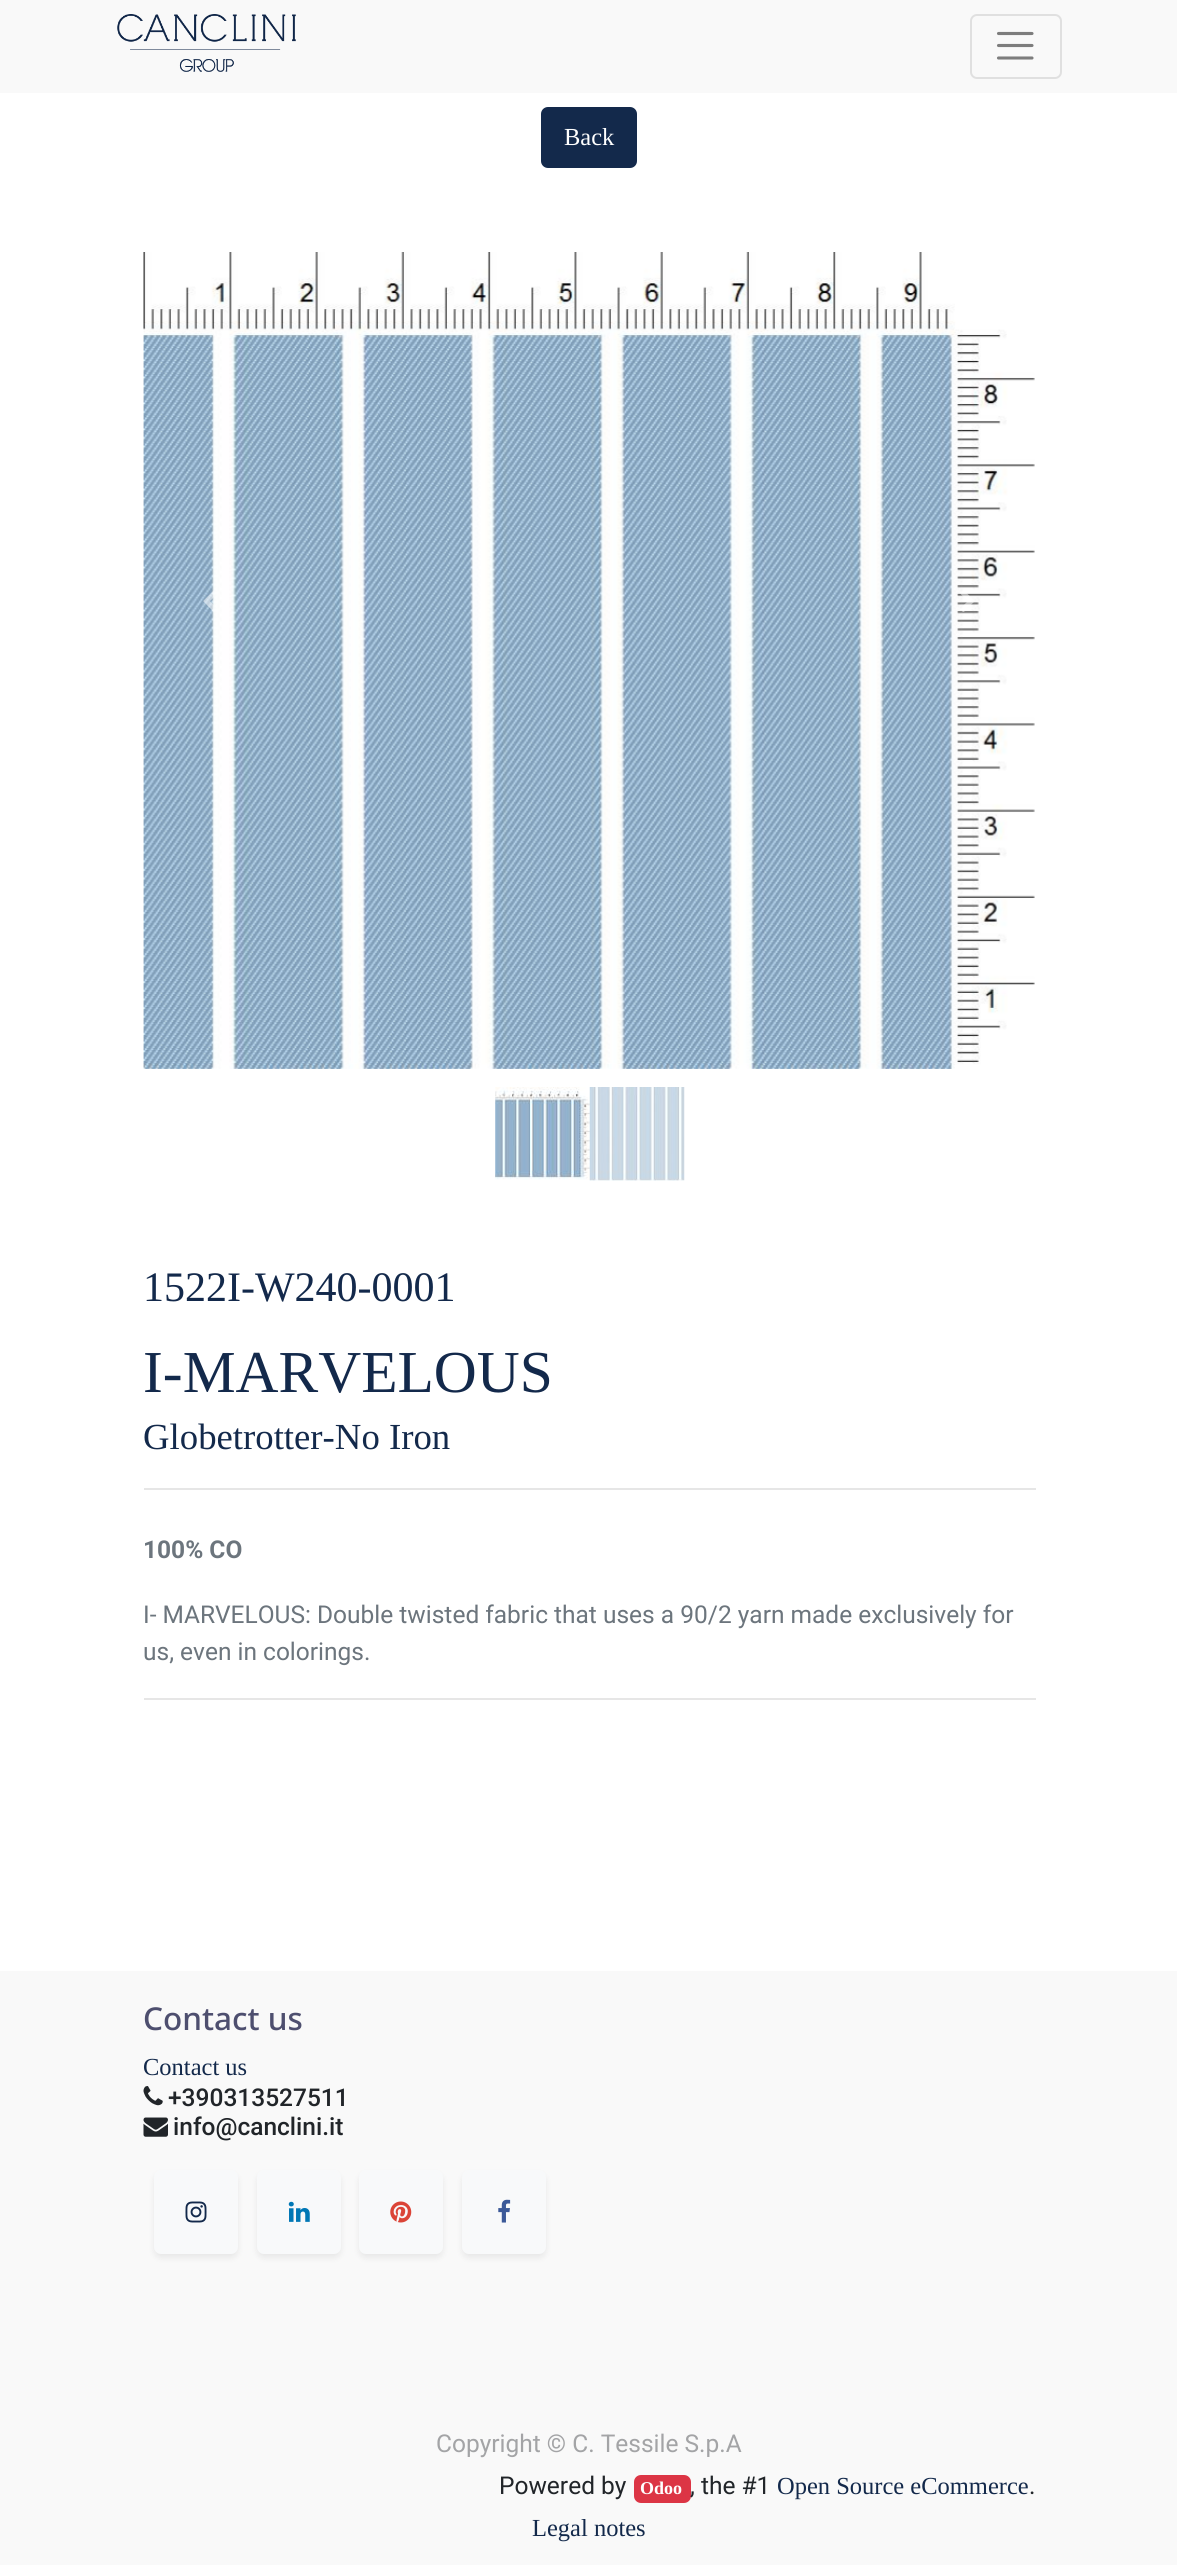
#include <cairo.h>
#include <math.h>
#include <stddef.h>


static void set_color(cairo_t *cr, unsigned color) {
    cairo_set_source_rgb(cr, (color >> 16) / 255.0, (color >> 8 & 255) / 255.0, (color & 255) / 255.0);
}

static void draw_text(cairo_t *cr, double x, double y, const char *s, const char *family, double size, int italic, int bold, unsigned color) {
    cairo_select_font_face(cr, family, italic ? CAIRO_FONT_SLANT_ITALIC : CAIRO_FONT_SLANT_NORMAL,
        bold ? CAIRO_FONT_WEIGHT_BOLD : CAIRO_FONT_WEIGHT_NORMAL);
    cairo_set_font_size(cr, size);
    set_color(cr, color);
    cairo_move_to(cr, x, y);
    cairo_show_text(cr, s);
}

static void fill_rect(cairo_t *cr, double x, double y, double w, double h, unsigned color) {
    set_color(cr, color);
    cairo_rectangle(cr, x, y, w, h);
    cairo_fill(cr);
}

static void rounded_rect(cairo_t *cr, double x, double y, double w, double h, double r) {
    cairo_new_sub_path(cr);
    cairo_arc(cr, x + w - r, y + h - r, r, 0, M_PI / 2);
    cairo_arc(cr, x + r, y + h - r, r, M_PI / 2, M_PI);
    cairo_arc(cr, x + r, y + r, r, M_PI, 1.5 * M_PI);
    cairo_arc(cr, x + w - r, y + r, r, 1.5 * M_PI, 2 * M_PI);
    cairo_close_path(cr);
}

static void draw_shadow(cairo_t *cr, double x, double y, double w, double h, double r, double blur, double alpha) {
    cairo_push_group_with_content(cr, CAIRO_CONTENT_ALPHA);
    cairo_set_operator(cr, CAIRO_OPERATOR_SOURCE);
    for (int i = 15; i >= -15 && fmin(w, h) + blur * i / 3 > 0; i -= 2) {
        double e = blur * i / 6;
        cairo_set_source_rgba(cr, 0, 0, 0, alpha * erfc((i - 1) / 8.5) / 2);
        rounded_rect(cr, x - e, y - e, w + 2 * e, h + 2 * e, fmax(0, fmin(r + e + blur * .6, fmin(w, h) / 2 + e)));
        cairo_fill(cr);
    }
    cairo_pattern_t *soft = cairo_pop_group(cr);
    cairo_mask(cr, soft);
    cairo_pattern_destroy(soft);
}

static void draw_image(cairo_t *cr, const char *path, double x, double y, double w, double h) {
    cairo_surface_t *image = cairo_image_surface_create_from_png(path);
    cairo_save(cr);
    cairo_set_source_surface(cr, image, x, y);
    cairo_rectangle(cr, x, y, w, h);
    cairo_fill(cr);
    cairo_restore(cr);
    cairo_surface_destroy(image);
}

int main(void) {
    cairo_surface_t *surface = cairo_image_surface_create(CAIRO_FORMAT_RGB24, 1177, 2565);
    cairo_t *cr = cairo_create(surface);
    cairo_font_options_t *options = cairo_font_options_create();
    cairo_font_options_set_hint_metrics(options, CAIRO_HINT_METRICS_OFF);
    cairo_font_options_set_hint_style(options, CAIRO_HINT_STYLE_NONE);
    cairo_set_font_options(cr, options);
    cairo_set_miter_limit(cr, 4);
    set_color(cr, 0xFFFFFF);
    cairo_paint(cr);
    fill_rect(cr, 0, 0, 1177, 93, 0xF9F9F9);
    draw_image(cr, "assets/img1.png", 117, 14, 179, 58);
    rounded_rect(cr, 971, 15, 90, 63, 6);
    set_color(cr, 0xE0E0E0);
    cairo_stroke(cr);
    cairo_new_path(cr);
    cairo_move_to(cr, 998.5, 33.5);
    cairo_line_to(cr, 1032, 33.5);
    cairo_move_to(cr, 998.5, 45.5);
    cairo_line_to(cr, 1032, 45.5);
    cairo_move_to(cr, 998.5, 58);
    cairo_line_to(cr, 1032, 58);
    set_color(cr, 0x7D7D7D);
    cairo_set_line_width(cr, 3.1);
    cairo_set_line_cap(cr, CAIRO_LINE_CAP_ROUND);
    cairo_stroke(cr);
    set_color(cr, 0x13294B);
    rounded_rect(cr, 542, 108, 94, 59, 6);
    cairo_fill_preserve(cr);
    cairo_set_line_width(cr, 2);
    cairo_set_line_cap(cr, CAIRO_LINE_CAP_BUTT);
    cairo_stroke(cr);
    draw_text(cr, 564, 145, "Back", "Liberation Serif", 24.5, 0, 0, 0xFFFFFF);
    draw_image(cr, "assets/img2.png", 143, 252, 892, 817);
    draw_image(cr, "assets/img3.png", 203, 590, 11, 22);
    draw_image(cr, "assets/img4.png", 960, 593, 14, 19);
    draw_image(cr, "assets/img5.png", 495, 1087, 95, 93);
    draw_image(cr, "assets/img6.png", 589, 1087, 96, 94);
    draw_text(cr, 143, 1301, "1522I-W240-0001", "Liberation Serif", 42, 0, 0, 0x13294B);
    draw_text(cr, 143, 1392, "I-MARVELOUS", "Liberation Serif", 59.5, 0, 0, 0x13294B);
    draw_text(cr, 143, 1449, "Globetrotter-No Iron", "Liberation Serif", 36.75, 0, 0, 0x13294B);
    fill_rect(cr, 144, 1488, 892, 2, 0xE6E6E6);
    draw_text(cr, 143, 1558, "100% CO", "Roboto", 24.5, 0, 1, 0x6C757D);
    draw_text(cr, 143, 1623, "I- MARVELOUS: Double twisted fabric that uses a 90/2 yarn made exclusively for", "Roboto", 24.5, 0, 0, 0x6C757D);
    draw_text(cr, 143, 1660, "us, even in colorings.", "Roboto", 24.5, 0, 0, 0x6C757D);
    fill_rect(cr, 144, 1698, 892, 2, 0xE6E6E6);
    fill_rect(cr, 0, 1971, 1177, 594, 0xF9F9F9);
    draw_text(cr, 143, 2030, "Contact us", "Noto Sans Medium", 31.5, 0, 0, 0x4E4F6F);
    draw_text(cr, 143, 2075, "Contact us", "Liberation Serif", 24.5, 0, 0, 0x13294B);
    draw_image(cr, "assets/img7.png", 143, 2086, 20, 20);
    draw_text(cr, 168, 2106, "+390313527511", "Roboto Medium", 24.5, 0, 0, 0x212529);
    draw_image(cr, "assets/img8.png", 143, 2117, 25, 20);
    draw_text(cr, 173, 2135, "info@canclini.it", "Roboto Medium", 24.5, 0, 0, 0x212529);
    set_color(cr, 0x000000);
    draw_shadow(cr, 154, 2174, 84, 84, 7, 3.5, 0.07);
    set_color(cr, 0xF8F9FA);
    rounded_rect(cr, 154, 2170, 84, 84, 7);
    cairo_fill(cr);
    draw_image(cr, "assets/img9.png", 185, 2201, 22, 22);
    set_color(cr, 0x000000);
    draw_shadow(cr, 257, 2174, 84, 84, 7, 3.5, 0.07);
    set_color(cr, 0xF8F9FA);
    rounded_rect(cr, 257, 2170, 84, 84, 7);
    cairo_fill(cr);
    draw_image(cr, "assets/img10.png", 288, 2201, 22, 21);
    set_color(cr, 0x000000);
    draw_shadow(cr, 359, 2174, 84, 84, 7, 3.5, 0.07);
    set_color(cr, 0xF8F9FA);
    rounded_rect(cr, 359, 2170, 84, 84, 7);
    cairo_fill(cr);
    draw_image(cr, "assets/img11.png", 390, 2201, 22, 22);
    set_color(cr, 0x000000);
    draw_shadow(cr, 462, 2174, 84, 84, 7, 3.5, 0.07);
    set_color(cr, 0xF8F9FA);
    rounded_rect(cr, 462, 2170, 84, 84, 7);
    cairo_fill(cr);
    draw_image(cr, "assets/img12.png", 498, 2199, 13, 24);
    draw_text(cr, 436, 2452, "Copyright © C. Tessile S.p.A", "Roboto", 24.5, 0, 0, 0xA3A4A6);
    draw_text(cr, 499, 2494, "Powered by", "Roboto", 24.5, 0, 0, 0x212529);
    set_color(cr, 0xDC3545);
    rounded_rect(cr, 634, 2475, 57, 28, 7);
    cairo_fill(cr);
    draw_text(cr, 640, 2494, "Odoo", "Liberation Serif", 18, 0, 1, 0xFFFFFF);
    draw_text(cr, 690, 2494, ", the #1", "Roboto", 24.5, 0, 0, 0x212529);
    draw_text(cr, 777, 2494, "Open Source eCommerce", "Liberation Serif", 24.5, 0, 0, 0x13294B);
    draw_text(cr, 1029, 2494, ".", "Roboto", 24.5, 0, 0, 0x212529);
    draw_text(cr, 532, 2536, "Legal notes", "Liberation Serif", 24.5, 0, 0, 0x13294B);
    cairo_surface_write_to_png(surface, "output.png");
    cairo_font_options_destroy(options);
    cairo_destroy(cr);
    cairo_surface_destroy(surface);
    return 0;
}
